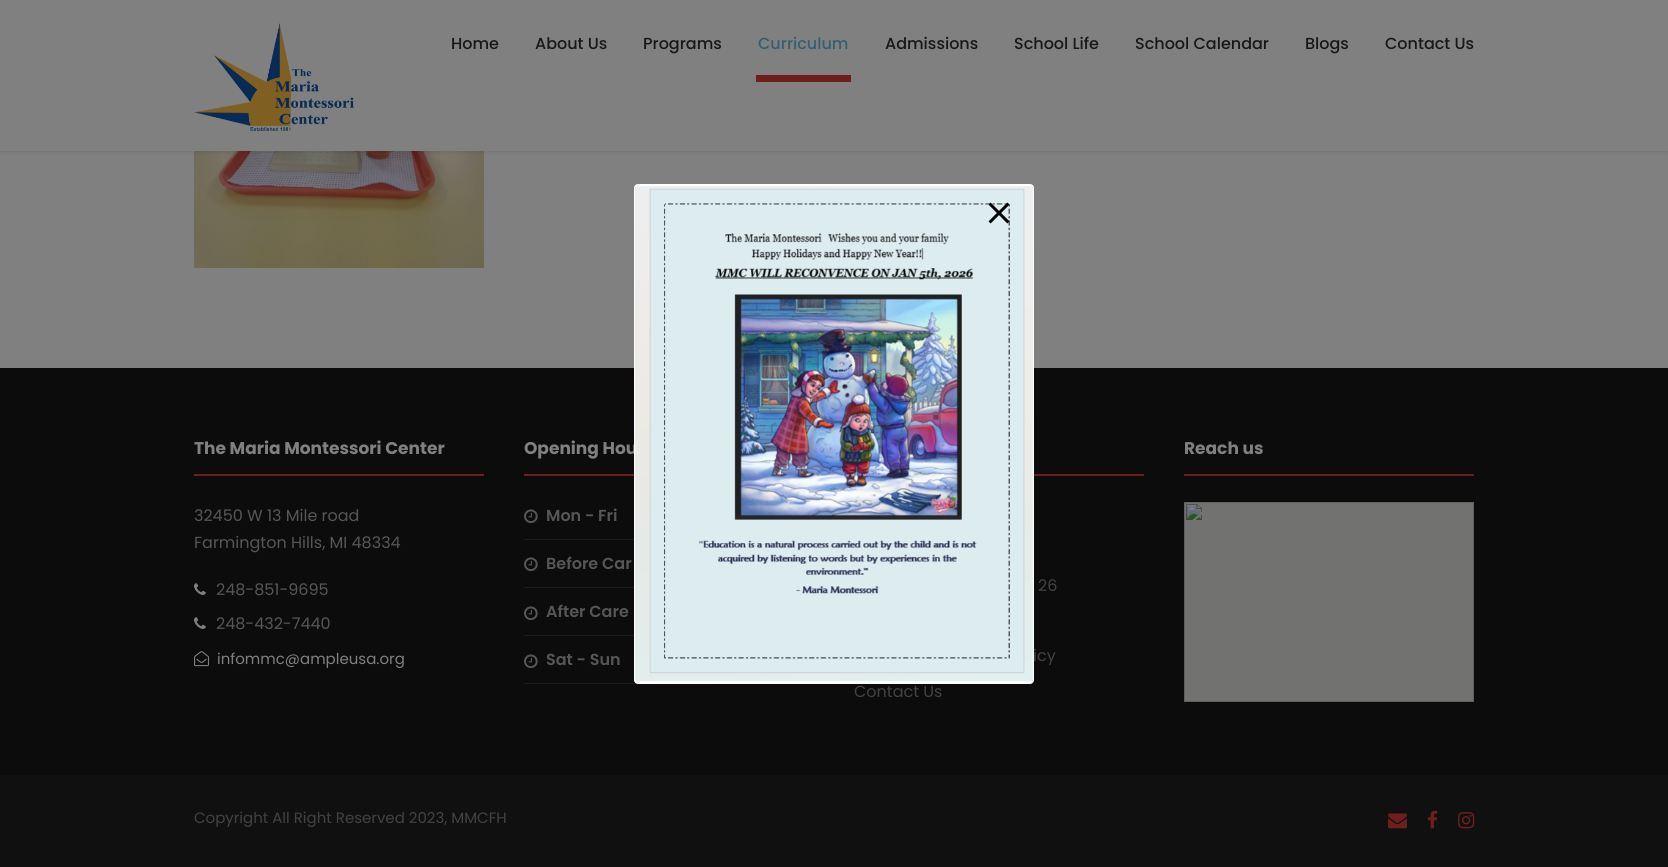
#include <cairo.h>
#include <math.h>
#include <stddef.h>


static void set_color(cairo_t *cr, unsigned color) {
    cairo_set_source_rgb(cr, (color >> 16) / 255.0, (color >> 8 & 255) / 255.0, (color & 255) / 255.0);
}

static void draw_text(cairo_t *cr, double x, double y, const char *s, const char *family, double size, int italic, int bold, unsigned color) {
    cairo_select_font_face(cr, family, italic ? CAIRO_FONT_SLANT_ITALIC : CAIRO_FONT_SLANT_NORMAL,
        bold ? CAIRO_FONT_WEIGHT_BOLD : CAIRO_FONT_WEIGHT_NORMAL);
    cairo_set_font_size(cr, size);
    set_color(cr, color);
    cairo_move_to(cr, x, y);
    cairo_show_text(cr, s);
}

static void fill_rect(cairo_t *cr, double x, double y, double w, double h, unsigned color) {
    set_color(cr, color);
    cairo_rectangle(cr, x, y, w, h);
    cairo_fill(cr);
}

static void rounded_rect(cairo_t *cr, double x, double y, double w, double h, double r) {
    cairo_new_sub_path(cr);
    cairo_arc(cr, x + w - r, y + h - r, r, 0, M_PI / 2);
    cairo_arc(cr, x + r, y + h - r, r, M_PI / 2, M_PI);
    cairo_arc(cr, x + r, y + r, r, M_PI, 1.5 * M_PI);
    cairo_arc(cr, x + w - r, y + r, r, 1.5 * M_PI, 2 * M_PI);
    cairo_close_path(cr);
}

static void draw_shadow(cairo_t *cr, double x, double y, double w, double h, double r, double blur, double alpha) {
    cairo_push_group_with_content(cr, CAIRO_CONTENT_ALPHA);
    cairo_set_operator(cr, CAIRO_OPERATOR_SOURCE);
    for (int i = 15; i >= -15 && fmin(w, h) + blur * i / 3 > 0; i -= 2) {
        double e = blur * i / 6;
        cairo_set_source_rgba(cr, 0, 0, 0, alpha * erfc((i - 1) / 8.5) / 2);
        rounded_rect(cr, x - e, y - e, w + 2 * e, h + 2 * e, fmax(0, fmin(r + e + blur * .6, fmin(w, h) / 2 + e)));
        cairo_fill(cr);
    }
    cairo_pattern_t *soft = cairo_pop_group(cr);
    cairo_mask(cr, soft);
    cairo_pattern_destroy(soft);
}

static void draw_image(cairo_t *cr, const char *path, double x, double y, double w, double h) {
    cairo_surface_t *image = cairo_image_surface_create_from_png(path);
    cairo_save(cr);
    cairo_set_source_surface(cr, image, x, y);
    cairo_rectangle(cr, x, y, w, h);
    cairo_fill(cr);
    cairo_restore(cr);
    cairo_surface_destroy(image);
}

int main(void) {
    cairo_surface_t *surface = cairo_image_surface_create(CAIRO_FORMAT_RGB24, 1668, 867);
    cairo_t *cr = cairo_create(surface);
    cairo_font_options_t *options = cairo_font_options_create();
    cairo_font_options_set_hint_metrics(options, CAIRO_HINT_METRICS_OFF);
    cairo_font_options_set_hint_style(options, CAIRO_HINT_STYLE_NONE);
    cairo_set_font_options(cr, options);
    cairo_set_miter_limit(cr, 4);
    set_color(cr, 0x808080);
    cairo_paint(cr);
    draw_image(cr, "assets/img4.png", 194, 151, 290, 117);
    set_color(cr, 0x000000);
    draw_shadow(cr, 0, 1, 1668, 151, 0, 2, 0.1);
    fill_rect(cr, 0, 0, 1668, 151, 0x808080);
    draw_image(cr, "assets/img1.png", 194, 23, 160, 108);
    draw_text(cr, 451, 49, "Home", "Poppins Medium", 16, 0, 0, 0x181818);
    draw_text(cr, 535, 49, "About Us", "Poppins Medium", 16, 0, 0, 0x181818);
    draw_text(cr, 643, 49, "Programs", "Poppins Medium", 16, 0, 0, 0x181818);
    draw_text(cr, 758, 49, "Curriculum", "Poppins Medium", 16, 0, 0, 0x325F73);
    draw_text(cr, 885, 49, "Admissions", "Poppins Medium", 16, 0, 0, 0x181818);
    draw_text(cr, 1014, 49, "School Life", "Poppins Medium", 16, 0, 0, 0x181818);
    draw_text(cr, 1135, 49, "School Calendar", "Poppins Medium", 16, 0, 0, 0x181818);
    draw_text(cr, 1305, 49, "Blogs", "Poppins Medium", 16, 0, 0, 0x181818);
    draw_text(cr, 1385, 49, "Contact Us", "Poppins Medium", 16, 0, 0, 0x181818);
    fill_rect(cr, 756, 75, 95, 7, 0x6E1E1D);
    fill_rect(cr, 0, 368, 1668, 407, 0x0C0C0C);
    draw_text(cr, 524, 454, "Opening Hou", "Poppins", 17, 0, 1, 0x808080);
    fill_rect(cr, 524, 683, 114, 1, 0x1B1B1B);
    draw_text(cr, 1033, 661, "icy", "Poppins", 16, 0, 0, 0x424242);
    set_color(cr, 0xFFFFFF);
    rounded_rect(cr, 634.5, 184.5, 399, 499, 3.5);
    cairo_fill_preserve(cr);
    cairo_set_line_width(cr, 1);
    cairo_stroke(cr);
    draw_image(cr, "assets/img2.png", 635, 186, 398, 496);
    draw_image(cr, "assets/img3.png", 988, 202, 22, 22);
    fill_rect(cr, 194, 474, 290, 2, 0x6E1E1D);
    draw_text(cr, 194, 454, "The Maria Montessori Center", "Poppins", 17, 0, 1, 0x808080);
    draw_text(cr, 194, 521, "32450 W 13 Mile road", "Poppins", 16, 0, 0, 0x565656);
    draw_text(cr, 194, 548, "Farmington Hills, MI 48334", "Poppins", 16, 0, 0, 0x565656);
    draw_image(cr, "assets/img5.png", 194, 583, 12, 12);
    draw_text(cr, 216, 595, "248-851-9695", "Poppins", 16, 0, 0, 0x565656);
    draw_image(cr, "assets/img5.png", 194, 617, 12, 12);
    draw_text(cr, 216, 629, "248-432-7440", "Poppins", 16, 0, 0, 0x565656);
    draw_image(cr, "assets/img6.png", 194, 651, 15, 16);
    draw_text(cr, 217, 664, "infommc@ampleusa.org", "Poppins", 15, 0, 0, 0x808080);
    fill_rect(cr, 524, 474, 110, 2, 0x6E1E1D);
    fill_rect(cr, 524, 539, 110, 1, 0x1B1B1B);
    draw_image(cr, "assets/img7.png", 524, 509, 14, 15);
    draw_text(cr, 546, 521, "Mon - Fri", "Poppins SemiBold", 16, 0, 0, 0x565656);
    fill_rect(cr, 524, 587, 110, 1, 0x1B1B1B);
    draw_image(cr, "assets/img7.png", 524, 557, 14, 15);
    draw_text(cr, 546, 569, "Before Car", "Poppins SemiBold", 16, 0, 0, 0x565656);
    fill_rect(cr, 524, 635, 110, 1, 0x1B1B1B);
    draw_image(cr, "assets/img7.png", 524, 606, 14, 15);
    draw_text(cr, 546, 617, "After Care", "Poppins SemiBold", 16, 0, 0, 0x565656);
    draw_image(cr, "assets/img7.png", 524, 654, 14, 15);
    draw_text(cr, 546, 665, "Sat - Sun", "Poppins SemiBold", 16, 0, 0, 0x565656);
    fill_rect(cr, 1184, 474, 290, 2, 0x6E1E1D);
    draw_text(cr, 1184, 454, "Reach us", "Poppins", 17, 0, 1, 0x808080);
    draw_image(cr, "assets/img8.png", 1184, 502, 290, 200);
    fill_rect(cr, 1034, 474, 110, 2, 0x6E1E1D);
    draw_text(cr, 1038, 591, "26", "Poppins", 16, 0, 0, 0x424242);
    draw_text(cr, 854, 697, "Contact Us", "Poppins", 16, 0, 0, 0x424242);
    fill_rect(cr, 0, 775, 1668, 92, 0x101010);
    draw_text(cr, 194, 823, "Copyright All Right Reserved 2023, MMCFH", "Poppins", 15, 0, 0, 0x424242);
    draw_image(cr, "assets/img9.png", 1388, 813, 19, 16);
    draw_image(cr, "assets/img10.png", 1428, 810, 10, 19);
    draw_image(cr, "assets/img11.png", 1458, 812, 17, 17);
    cairo_surface_write_to_png(surface, "output.png");
    cairo_font_options_destroy(options);
    cairo_destroy(cr);
    cairo_surface_destroy(surface);
    return 0;
}
